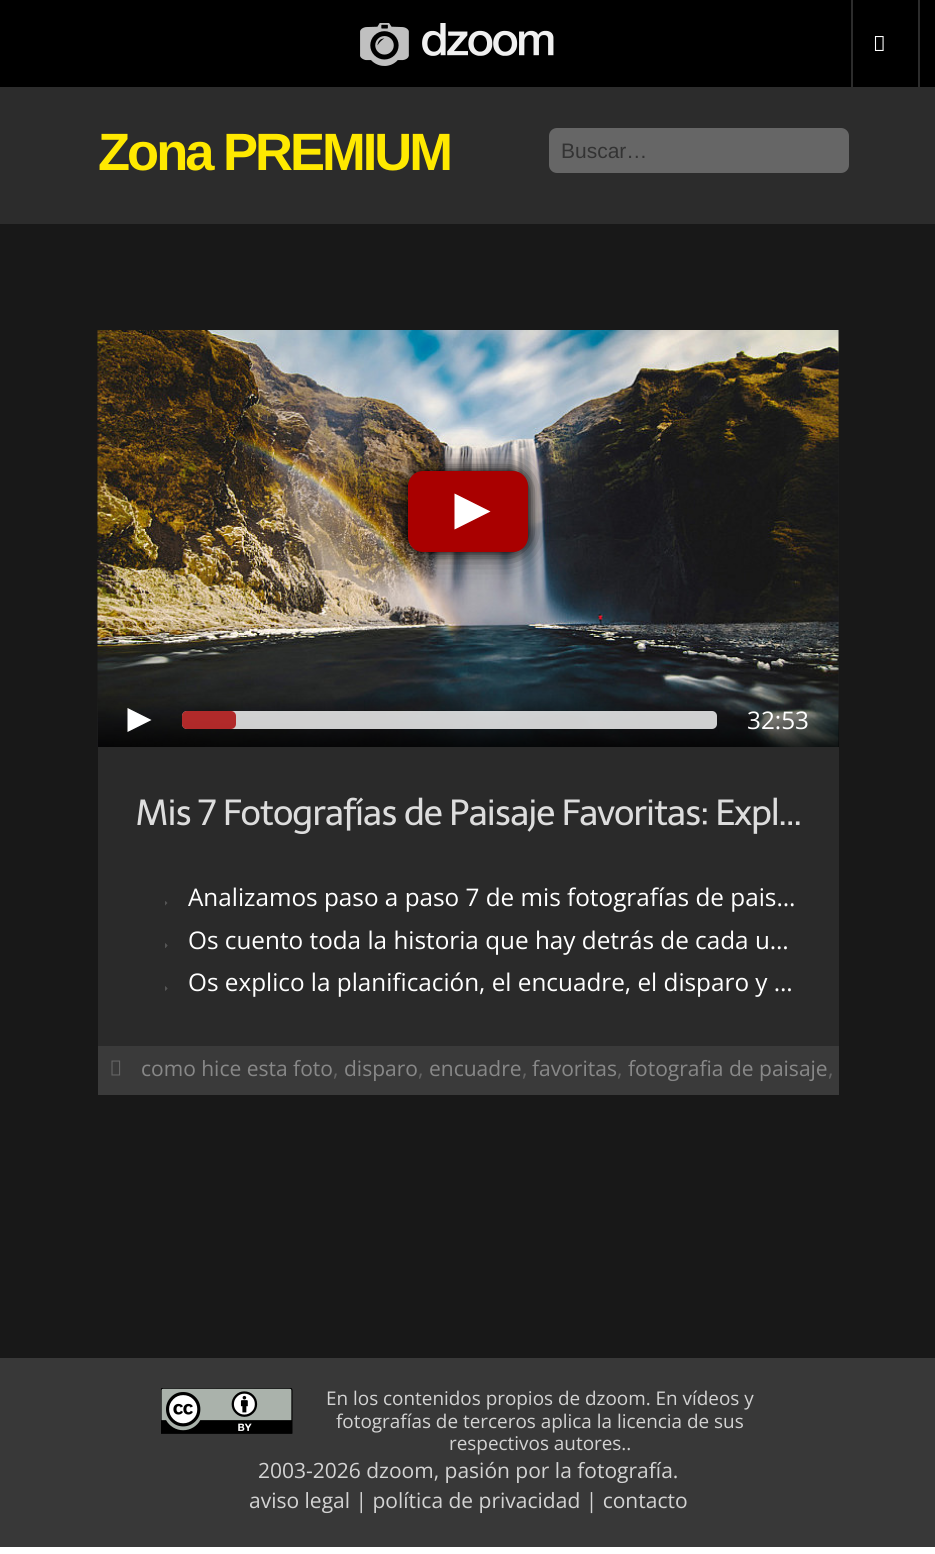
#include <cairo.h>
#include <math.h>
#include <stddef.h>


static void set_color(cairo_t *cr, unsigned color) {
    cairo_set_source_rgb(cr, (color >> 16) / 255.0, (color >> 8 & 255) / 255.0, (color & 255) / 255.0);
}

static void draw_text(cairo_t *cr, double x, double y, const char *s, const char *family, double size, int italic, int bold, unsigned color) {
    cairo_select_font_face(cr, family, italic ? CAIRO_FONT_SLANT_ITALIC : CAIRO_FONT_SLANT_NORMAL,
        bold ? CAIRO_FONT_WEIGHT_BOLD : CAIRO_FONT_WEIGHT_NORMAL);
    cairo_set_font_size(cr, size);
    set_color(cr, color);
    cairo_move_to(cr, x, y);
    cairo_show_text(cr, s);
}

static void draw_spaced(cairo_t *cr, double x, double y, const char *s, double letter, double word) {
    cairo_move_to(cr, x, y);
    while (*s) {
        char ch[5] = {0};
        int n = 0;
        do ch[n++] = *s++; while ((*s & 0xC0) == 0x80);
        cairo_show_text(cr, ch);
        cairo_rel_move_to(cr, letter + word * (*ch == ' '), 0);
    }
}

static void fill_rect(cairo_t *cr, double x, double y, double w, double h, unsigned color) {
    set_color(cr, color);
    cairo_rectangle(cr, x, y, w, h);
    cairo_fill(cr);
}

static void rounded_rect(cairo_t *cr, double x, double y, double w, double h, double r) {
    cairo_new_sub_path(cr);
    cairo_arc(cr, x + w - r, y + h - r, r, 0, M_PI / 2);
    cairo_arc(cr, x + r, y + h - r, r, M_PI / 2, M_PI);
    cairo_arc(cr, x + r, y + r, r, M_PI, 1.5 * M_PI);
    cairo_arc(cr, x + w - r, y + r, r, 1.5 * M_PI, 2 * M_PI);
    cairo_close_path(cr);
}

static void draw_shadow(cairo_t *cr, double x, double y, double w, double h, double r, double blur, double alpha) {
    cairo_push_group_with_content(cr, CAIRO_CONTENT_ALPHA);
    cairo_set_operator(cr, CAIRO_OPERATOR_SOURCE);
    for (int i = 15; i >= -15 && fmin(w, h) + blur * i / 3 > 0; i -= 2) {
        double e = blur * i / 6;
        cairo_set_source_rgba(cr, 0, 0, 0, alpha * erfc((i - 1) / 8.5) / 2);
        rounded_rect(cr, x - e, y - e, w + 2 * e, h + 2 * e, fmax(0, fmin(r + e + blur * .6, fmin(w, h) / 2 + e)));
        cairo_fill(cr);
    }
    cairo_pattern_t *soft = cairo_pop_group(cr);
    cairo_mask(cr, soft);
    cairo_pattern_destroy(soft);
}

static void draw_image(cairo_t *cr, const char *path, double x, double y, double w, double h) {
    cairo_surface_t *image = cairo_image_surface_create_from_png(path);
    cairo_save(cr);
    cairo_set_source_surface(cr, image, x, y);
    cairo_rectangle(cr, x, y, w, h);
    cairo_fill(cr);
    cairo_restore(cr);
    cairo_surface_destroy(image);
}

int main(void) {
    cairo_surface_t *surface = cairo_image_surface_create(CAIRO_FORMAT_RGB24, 935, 1554);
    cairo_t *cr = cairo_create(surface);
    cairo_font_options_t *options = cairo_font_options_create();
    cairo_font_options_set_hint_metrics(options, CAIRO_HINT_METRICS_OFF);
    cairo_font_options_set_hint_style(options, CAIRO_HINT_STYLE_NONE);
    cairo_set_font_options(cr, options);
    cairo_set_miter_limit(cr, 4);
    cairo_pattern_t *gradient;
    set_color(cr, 0xFFFFFF);
    cairo_paint(cr);
    fill_rect(cr, 0, 224, 935, 1134, 0x181818);
    fill_rect(cr, 0, 0, 935, 87, 0x000000);
    draw_image(cr, "assets/img1.png", 360, 23, 194, 43);
    fill_rect(cr, 918, 0, 2, 87, 0x2C2C2C);
    fill_rect(cr, 851, 0, 2, 87, 0x2C2C2C);
    draw_image(cr, "assets/img2.png", 874, 36, 10, 15);
    fill_rect(cr, 0, 87, 935, 137, 0x2C2C2C);
    cairo_select_font_face(cr, "Liberation Sans", CAIRO_FONT_SLANT_NORMAL, CAIRO_FONT_WEIGHT_BOLD);
    cairo_set_font_size(cr, 52.5);
    set_color(cr, 0xFFE900);
    draw_spaced(cr, 98, 170, "Zona PREMIUM", -3, 0);
    set_color(cr, 0x666666);
    rounded_rect(cr, 549, 128, 300, 45, 8);
    cairo_fill(cr);
    draw_text(cr, 561, 158, "Buscar…", "Liberation Sans", 21, 0, 0, 0x333333);
    fill_rect(cr, 98, 747, 741, 299, 0x2A2A2A);
    fill_rect(cr, 838, 330, 1, 417, 0x202020);
    draw_image(cr, "assets/img3.png", 97, 330, 742, 417);
    set_color(cr, 0x000000);
    draw_shadow(cr, 408, 471, 120, 81, 15, 15, 0.79);
    draw_shadow(cr, 408, 471, 120, 81, 15, 6, 0.8);
    set_color(cr, 0xA90000);
    rounded_rect(cr, 408, 471, 120, 81, 15);
    cairo_fill(cr);
    set_color(cr, 0xFFFFFF);
    cairo_new_path(cr);
    cairo_move_to(cr, 454.5, 529.5);
    cairo_line_to(cr, 454.5, 493.5);
    cairo_line_to(cr, 490.5, 511.5);
    cairo_close_path(cr);
    cairo_fill(cr);
    gradient = cairo_pattern_create_linear(468, 693, 468, 747);
    cairo_pattern_add_color_stop_rgba(gradient, 0, 0, 0, 0, 0);
    cairo_pattern_add_color_stop_rgba(gradient, 1, 0, 0, 0, 0.8);
    cairo_set_source(cr, gradient);
    cairo_pattern_destroy(gradient);
    cairo_rectangle(cr, 98, 694, 741, 53);
    cairo_fill(cr);
    set_color(cr, 0xFFFFFF);
    cairo_new_path(cr);
    cairo_move_to(cr, 127.5, 732);
    cairo_line_to(cr, 127.5, 708);
    cairo_line_to(cr, 151.5, 720);
    cairo_close_path(cr);
    cairo_fill(cr);
    cairo_set_source_rgba(cr, 1, 1, 1, 0.8);
    rounded_rect(cr, 182, 711, 535, 18, 5);
    cairo_fill(cr);
    cairo_set_source_rgba(cr, 0.663, 0, 0, 0.8);
    rounded_rect(cr, 182, 711, 54, 18, 5);
    cairo_fill(cr);
    draw_text(cr, 747, 729, "32:53", "Open Sans", 24.3, 0, 0, 0xFFFFFF);
    cairo_select_font_face(cr, "Telex", CAIRO_FONT_SLANT_NORMAL, CAIRO_FONT_WEIGHT_NORMAL);
    cairo_set_font_size(cr, 36);
    set_color(cr, 0xDDDDDD);
    draw_spaced(cr, 135, 825, "Mis 7 Fotografías de Paisaje Favoritas: Expl…", -1.5, 0);
    cairo_save(cr);
    cairo_rectangle(cr, 165, 881, 636, 34);
    cairo_clip(cr);
    set_color(cr, 0x555555);
    cairo_new_path(cr);
    cairo_move_to(cr, 157, 909.5);
    cairo_line_to(cr, 165.5, 901);
    cairo_line_to(cr, 167.5, 903);
    cairo_line_to(cr, 159, 911.5);
    cairo_close_path(cr);
    cairo_fill(cr);
    cairo_restore(cr);
    draw_text(cr, 188, 906, "Analizamos paso a paso 7 de mis fotografías de pais…", "Open Sans", 24.3, 0, 0, 0xFFFFFF);
    cairo_save(cr);
    cairo_rectangle(cr, 165, 923, 636, 36);
    cairo_clip(cr);
    set_color(cr, 0x555555);
    cairo_new_path(cr);
    cairo_move_to(cr, 157, 939.5);
    cairo_line_to(cr, 159, 937);
    cairo_line_to(cr, 167.5, 945.5);
    cairo_line_to(cr, 165.5, 948);
    cairo_close_path(cr);
    cairo_fill(cr);
    cairo_new_path(cr);
    cairo_move_to(cr, 157, 952);
    cairo_line_to(cr, 165.5, 943.5);
    cairo_line_to(cr, 167.5, 945.5);
    cairo_line_to(cr, 159, 954);
    cairo_close_path(cr);
    cairo_fill(cr);
    cairo_restore(cr);
    draw_text(cr, 188, 949, "Os cuento toda la historia que hay detrás de cada u…", "Open Sans", 24.3, 0, 0, 0xFFFFFF);
    cairo_save(cr);
    cairo_rectangle(cr, 165, 966, 636, 35);
    cairo_clip(cr);
    set_color(cr, 0x555555);
    cairo_new_path(cr);
    cairo_move_to(cr, 157, 982);
    cairo_line_to(cr, 159, 980);
    cairo_line_to(cr, 167.5, 988.5);
    cairo_line_to(cr, 165.5, 990.5);
    cairo_close_path(cr);
    cairo_fill(cr);
    cairo_new_path(cr);
    cairo_move_to(cr, 157, 994.5);
    cairo_line_to(cr, 165.5, 986.5);
    cairo_line_to(cr, 167.5, 988.5);
    cairo_line_to(cr, 159, 997);
    cairo_close_path(cr);
    cairo_fill(cr);
    cairo_restore(cr);
    draw_text(cr, 188, 991, "Os explico la planificación, el encuadre, el disparo y …", "Open Sans", 24.3, 0, 0, 0xFFFFFF);
    fill_rect(cr, 98, 1046, 741, 49, 0x3A3A3A);
    draw_image(cr, "assets/img4.png", 111, 1060, 10, 16);
    draw_text(cr, 141, 1076, "como hice esta foto", "Open Sans", 21, 0, 0, 0x888888);
    draw_text(cr, 333, 1076, ",", "Open Sans", 21, 0, 0, 0x666666);
    draw_text(cr, 344, 1076, "disparo", "Open Sans", 21, 0, 0, 0x888888);
    draw_text(cr, 418, 1076, ",", "Open Sans", 21, 0, 0, 0x666666);
    draw_text(cr, 429, 1076, "encuadre", "Open Sans", 21, 0, 0, 0x888888);
    draw_text(cr, 522, 1076, ",", "Open Sans", 21, 0, 0, 0x666666);
    draw_text(cr, 532, 1076, "favoritas", "Open Sans", 21, 0, 0, 0x888888);
    draw_text(cr, 617, 1076, ",", "Open Sans", 21, 0, 0, 0x666666);
    draw_text(cr, 628, 1076, "fotografia de paisaje", "Open Sans", 21, 0, 0, 0x888888);
    draw_text(cr, 828, 1076, ",", "Open Sans", 21, 0, 0, 0x666666);
    fill_rect(cr, 0, 1358, 935, 189, 0x383838);
    draw_image(cr, "assets/img5.png", 161, 1388, 132, 46);
    draw_text(cr, 326, 1405, "En los contenidos propios de dzoom. En vídeos y", "Open Sans", 18.9, 0, 0, 0xD3D3D3);
    draw_text(cr, 336, 1428, "fotografías de terceros aplica la licencia de sus", "Open Sans", 18.9, 0, 0, 0xD3D3D3);
    draw_text(cr, 449, 1450, "respectivos autores..", "Open Sans", 18.9, 0, 0, 0xD3D3D3);
    draw_text(cr, 258, 1478, "2003-2026 dzoom, pasión por la fotografía.", "Open Sans", 21, 0, 0, 0xD3D3D3);
    draw_text(cr, 249, 1508, "aviso legal | política de privacidad | contacto", "Open Sans", 21, 0, 0, 0xD3D3D3);
    cairo_surface_write_to_png(surface, "output.png");
    cairo_font_options_destroy(options);
    cairo_destroy(cr);
    cairo_surface_destroy(surface);
    return 0;
}
